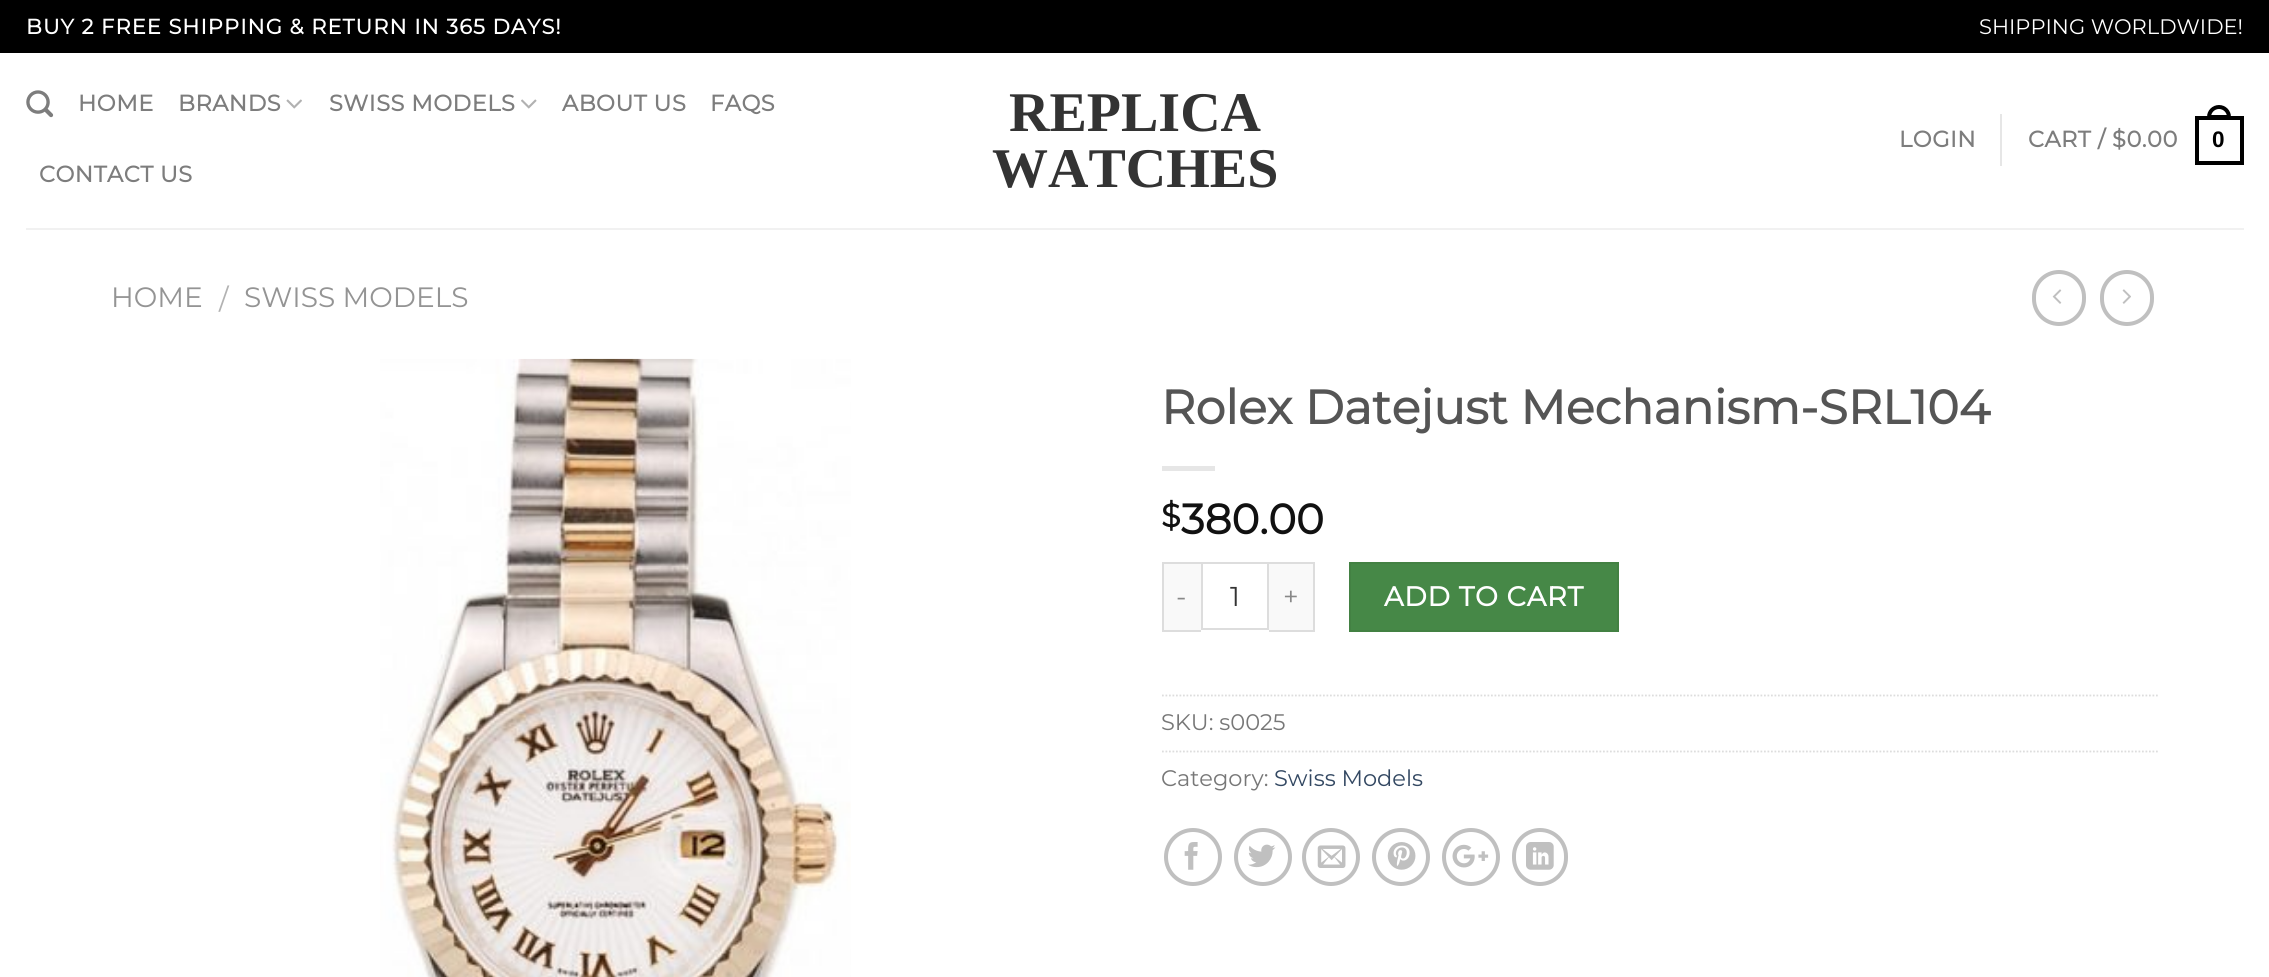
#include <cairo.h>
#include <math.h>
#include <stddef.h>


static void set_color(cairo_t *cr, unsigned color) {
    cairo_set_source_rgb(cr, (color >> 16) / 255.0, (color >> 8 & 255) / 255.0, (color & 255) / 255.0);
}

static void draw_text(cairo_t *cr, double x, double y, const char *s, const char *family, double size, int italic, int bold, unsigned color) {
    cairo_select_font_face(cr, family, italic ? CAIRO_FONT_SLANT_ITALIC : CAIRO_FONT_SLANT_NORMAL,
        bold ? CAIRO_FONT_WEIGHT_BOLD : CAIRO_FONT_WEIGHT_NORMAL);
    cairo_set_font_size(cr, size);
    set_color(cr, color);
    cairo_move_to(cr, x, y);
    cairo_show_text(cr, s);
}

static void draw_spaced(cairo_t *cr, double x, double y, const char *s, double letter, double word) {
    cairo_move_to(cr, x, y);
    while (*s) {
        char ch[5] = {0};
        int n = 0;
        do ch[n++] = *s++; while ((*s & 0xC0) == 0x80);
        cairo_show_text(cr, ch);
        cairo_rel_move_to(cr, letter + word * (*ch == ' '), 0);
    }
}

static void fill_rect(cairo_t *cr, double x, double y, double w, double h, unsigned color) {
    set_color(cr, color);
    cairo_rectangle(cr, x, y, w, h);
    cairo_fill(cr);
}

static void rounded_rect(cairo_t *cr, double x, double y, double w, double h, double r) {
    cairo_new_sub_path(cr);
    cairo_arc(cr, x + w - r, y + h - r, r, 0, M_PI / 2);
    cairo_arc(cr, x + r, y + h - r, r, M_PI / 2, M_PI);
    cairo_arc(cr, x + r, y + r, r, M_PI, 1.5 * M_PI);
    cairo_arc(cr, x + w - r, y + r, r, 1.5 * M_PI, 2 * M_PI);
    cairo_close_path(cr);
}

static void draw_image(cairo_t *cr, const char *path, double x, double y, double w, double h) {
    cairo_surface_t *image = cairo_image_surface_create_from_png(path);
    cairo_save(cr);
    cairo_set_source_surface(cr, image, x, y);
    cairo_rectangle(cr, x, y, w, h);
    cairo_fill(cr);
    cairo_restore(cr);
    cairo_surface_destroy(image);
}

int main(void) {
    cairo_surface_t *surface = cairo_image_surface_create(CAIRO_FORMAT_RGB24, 2269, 977);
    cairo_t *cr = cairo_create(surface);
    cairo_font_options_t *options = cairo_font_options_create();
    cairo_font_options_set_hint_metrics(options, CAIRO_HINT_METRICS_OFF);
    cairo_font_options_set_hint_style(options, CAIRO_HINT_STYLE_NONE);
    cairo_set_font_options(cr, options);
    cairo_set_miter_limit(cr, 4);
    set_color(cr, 0xFFFFFF);
    cairo_paint(cr);
    fill_rect(cr, 0, 0, 2269, 53, 0x000000);
    cairo_select_font_face(cr, "Montserrat", CAIRO_FONT_SLANT_NORMAL, CAIRO_FONT_WEIGHT_BOLD);
    cairo_set_font_size(cr, 21);
    set_color(cr, 0xFFFFFF);
    draw_spaced(cr, 26, 34, "BUY 2 FREE SHIPPING & RETURN IN 365 DAYS!", 1.05, 0);
    draw_text(cr, 1979, 34, "SHIPPING WORLDWIDE!", "Montserrat Thin", 21, 0, 0, 0xFFFFFF);
    draw_image(cr, "assets/img1.png", 26, 90, 28, 28);
    cairo_select_font_face(cr, "Montserrat", CAIRO_FONT_SLANT_NORMAL, CAIRO_FONT_WEIGHT_BOLD);
    cairo_set_font_size(cr, 22.5);
    set_color(cr, 0x7D7D7D);
    draw_spaced(cr, 78, 111, "HOME", 0.5, 0);
    draw_spaced(cr, 178, 111, "BRANDS", 0.5, 0);
    draw_image(cr, "assets/img2.png", 286, 99, 16, 10);
    draw_spaced(cr, 329, 111, "SWISS MODELS", 0.5, 0);
    draw_image(cr, "assets/img3.png", 521, 99, 16, 10);
    draw_spaced(cr, 562, 111, "ABOUT US", 0.5, 0);
    draw_spaced(cr, 710, 111, "FAQS", 0.5, 0);
    draw_spaced(cr, 39, 182, "CONTACT US", 0.5, 0);
    draw_text(cr, 1009, 131, "REPLICA", "Liberation Serif", 56, 0, 1, 0x333333);
    draw_text(cr, 992, 187, "WATCHES", "Liberation Serif", 56, 0, 1, 0x333333);
    cairo_select_font_face(cr, "Montserrat", CAIRO_FONT_SLANT_NORMAL, CAIRO_FONT_WEIGHT_BOLD);
    cairo_set_font_size(cr, 22.5);
    set_color(cr, 0x7D7D7D);
    draw_spaced(cr, 1899, 147, "LOGIN", 0.5, 0);
    fill_rect(cr, 2000, 114, 2, 52, 0xE6E6E6);
    set_color(cr, 0x7D7D7D);
    draw_spaced(cr, 2028, 147, "CART / $0.00", 0.5, 0);
    cairo_rectangle(cr, 2197, 118, 45, 45);
    set_color(cr, 0x000000);
    cairo_set_line_width(cr, 4);
    cairo_stroke(cr);
    cairo_new_path(cr);
    cairo_move_to(cr, 2219, 107);
    cairo_curve_to(cr, 2224.5, 107, 2229, 111.5, 2229, 117);
    cairo_line_to(cr, 2209, 117);
    cairo_curve_to(cr, 2209, 111.5, 2213.5, 107, 2219, 107);
    cairo_close_path(cr);
    cairo_stroke(cr);
    cairo_select_font_face(cr, "Liberation Sans", CAIRO_FONT_SLANT_NORMAL, CAIRO_FONT_WEIGHT_BOLD);
    draw_spaced(cr, 2212, 147, "0", 0.5, 0);
    fill_rect(cr, 26, 228, 2218, 2, 0xF1F1F1);
    draw_text(cr, 111, 307, "HOME", "Montserrat Thin", 28, 0, 0, 0x949494);
    draw_text(cr, 219, 309, "/", "Montserrat Thin", 28, 0, 0, 0xB2B2B2);
    draw_text(cr, 244, 307, "SWISS MODELS", "Montserrat Thin", 28, 0, 0, 0x949494);
    rounded_rect(cr, 2034, 272, 50, 52, 25);
    set_color(cr, 0xC0C0C0);
    cairo_stroke(cr);
    draw_image(cr, "assets/img4.png", 2052, 289, 10, 15);
    rounded_rect(cr, 2102, 272, 50, 52, 25);
    cairo_stroke(cr);
    draw_image(cr, "assets/img5.png", 2122, 289, 9, 15);
    draw_image(cr, "assets/img6.png", 380, 358, 471, 619);
    draw_text(cr, 1161, 424, "Rolex Datejust Mechanism-SRL104", "Montserrat", 47.6, 0, 1, 0x555555);
    fill_rect(cr, 1162, 466, 53, 5, 0xE6E6E6);
    draw_text(cr, 1161, 527, "$", "Montserrat", 32, 0, 1, 0x111111);
    draw_text(cr, 1181, 534, "380.00", "Montserrat", 42, 0, 1, 0x111111);
    fill_rect(cr, 1164, 564, 37, 66, 0xF9F9F9);
    fill_rect(cr, 1162, 562, 39, 2, 0xDDDDDD);
    fill_rect(cr, 1162, 630, 39, 2, 0xDDDDDD);
    fill_rect(cr, 1162, 562, 2, 70, 0xDDDDDD);
    cairo_select_font_face(cr, "Montserrat Thin", CAIRO_FONT_SLANT_NORMAL, CAIRO_FONT_WEIGHT_NORMAL);
    cairo_set_font_size(cr, 27.25);
    set_color(cr, 0x888888);
    draw_spaced(cr, 1176, 606, "-", 0.75, 0);
    cairo_rectangle(cr, 1202, 563, 66, 66);
    set_color(cr, 0xDDDDDD);
    cairo_set_line_width(cr, 2);
    cairo_stroke(cr);
    draw_text(cr, 1230, 606, "1", "Montserrat Thin", 27.25, 0, 0, 0x333333);
    fill_rect(cr, 1269, 564, 44, 66, 0xF9F9F9);
    fill_rect(cr, 1269, 562, 45, 2, 0xDDDDDD);
    fill_rect(cr, 1313, 562, 2, 70, 0xDDDDDD);
    fill_rect(cr, 1269, 630, 45, 2, 0xDDDDDD);
    set_color(cr, 0x888888);
    draw_spaced(cr, 1283, 606, "+", 0.75, 0);
    set_color(cr, 0x468847);
    cairo_rectangle(cr, 1350, 563, 268, 68);
    cairo_fill_preserve(cr);
    set_color(cr, 0x438143);
    cairo_stroke(cr);
    cairo_select_font_face(cr, "Montserrat", CAIRO_FONT_SLANT_NORMAL, CAIRO_FONT_WEIGHT_BOLD);
    set_color(cr, 0xFFFFFF);
    draw_spaced(cr, 1384, 606, "ADD TO CART", 0.75, 0);
    cairo_new_path(cr);
    cairo_move_to(cr, 1162, 695.5);
    cairo_line_to(cr, 2159.5, 695.5);
    set_color(cr, 0xDDDDDD);
    cairo_set_line_width(cr, 1.8);
    cairo_set_dash(cr, (double[]){1.75, 1.75}, 2, 0);
    cairo_stroke(cr);
    draw_text(cr, 1161, 730, "SKU: s0025", "Montserrat Thin", 22.5, 0, 0, 0x777777);
    cairo_new_path(cr);
    cairo_move_to(cr, 1162, 751.5);
    cairo_line_to(cr, 2159.5, 751.5);
    set_color(cr, 0xDDDDDD);
    cairo_stroke(cr);
    draw_text(cr, 1161, 786, "Category:", "Montserrat Thin", 22.5, 0, 0, 0x777777);
    draw_text(cr, 1274, 786, "Swiss Models", "Montserrat Thin", 22.5, 0, 0, 0x334862);
    cairo_new_path(cr);
    cairo_arc(cr, 1193, 857, 27, 0, 2 * M_PI);
    set_color(cr, 0xC0C0C0);
    cairo_set_line_width(cr, 4);
    cairo_set_dash(cr, NULL, 0, 0);
    cairo_stroke(cr);
    draw_image(cr, "assets/img7.png", 1184, 842, 14, 28);
    cairo_arc(cr, 1263, 857, 27, 0, 2 * M_PI);
    cairo_stroke(cr);
    draw_image(cr, "assets/img8.png", 1248, 844, 28, 24);
    cairo_arc(cr, 1331, 857, 27, 0, 2 * M_PI);
    cairo_stroke(cr);
    draw_image(cr, "assets/img9.png", 1317, 845, 29, 23);
    cairo_arc(cr, 1401, 857, 27, 0, 2 * M_PI);
    cairo_stroke(cr);
    draw_image(cr, "assets/img10.png", 1387, 842, 29, 28);
    cairo_arc(cr, 1471, 857, 27, 0, 2 * M_PI);
    cairo_stroke(cr);
    draw_image(cr, "assets/img11.png", 1452, 844, 37, 24);
    rounded_rect(cr, 1514, 830, 52, 54, 26);
    cairo_stroke(cr);
    draw_image(cr, "assets/img12.png", 1526, 842, 28, 28);
    cairo_surface_write_to_png(surface, "output.png");
    cairo_font_options_destroy(options);
    cairo_destroy(cr);
    cairo_surface_destroy(surface);
    return 0;
}
